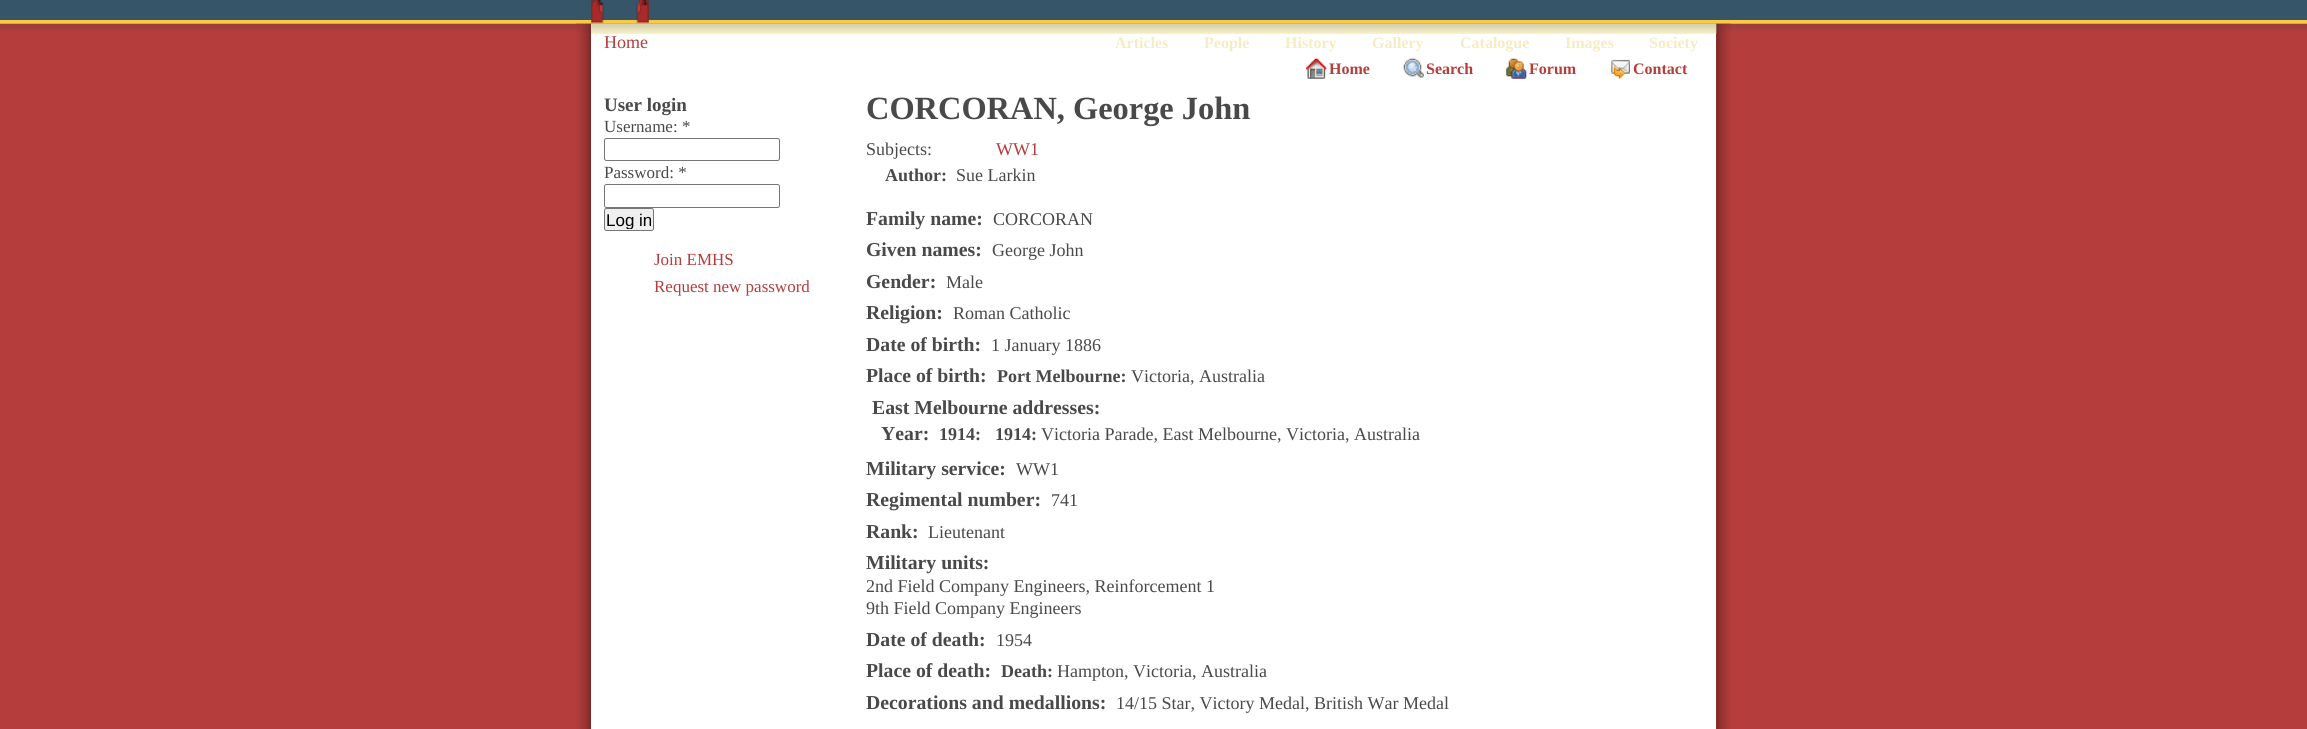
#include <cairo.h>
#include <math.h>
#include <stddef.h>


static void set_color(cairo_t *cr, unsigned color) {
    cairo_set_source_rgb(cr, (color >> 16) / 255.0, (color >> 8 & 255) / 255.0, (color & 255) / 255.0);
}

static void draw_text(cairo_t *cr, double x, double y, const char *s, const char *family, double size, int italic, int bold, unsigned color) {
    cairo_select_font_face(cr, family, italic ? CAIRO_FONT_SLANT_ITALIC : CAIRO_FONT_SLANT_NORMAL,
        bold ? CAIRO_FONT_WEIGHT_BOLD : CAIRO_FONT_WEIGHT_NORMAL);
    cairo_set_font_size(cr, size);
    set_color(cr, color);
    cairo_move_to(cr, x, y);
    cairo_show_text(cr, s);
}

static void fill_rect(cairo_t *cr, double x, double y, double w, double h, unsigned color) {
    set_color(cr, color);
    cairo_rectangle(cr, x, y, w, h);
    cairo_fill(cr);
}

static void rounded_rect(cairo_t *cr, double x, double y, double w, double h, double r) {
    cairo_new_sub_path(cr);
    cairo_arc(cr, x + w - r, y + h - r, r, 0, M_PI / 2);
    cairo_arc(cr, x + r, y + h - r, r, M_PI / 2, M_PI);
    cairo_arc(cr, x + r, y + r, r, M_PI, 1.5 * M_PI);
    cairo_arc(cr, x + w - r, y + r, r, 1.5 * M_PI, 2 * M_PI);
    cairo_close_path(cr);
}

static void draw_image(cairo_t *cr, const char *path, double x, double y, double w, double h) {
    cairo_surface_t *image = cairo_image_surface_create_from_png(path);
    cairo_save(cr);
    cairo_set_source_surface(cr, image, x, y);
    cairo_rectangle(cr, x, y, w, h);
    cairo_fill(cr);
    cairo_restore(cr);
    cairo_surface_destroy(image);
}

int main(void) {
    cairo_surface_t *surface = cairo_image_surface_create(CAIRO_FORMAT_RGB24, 2307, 729);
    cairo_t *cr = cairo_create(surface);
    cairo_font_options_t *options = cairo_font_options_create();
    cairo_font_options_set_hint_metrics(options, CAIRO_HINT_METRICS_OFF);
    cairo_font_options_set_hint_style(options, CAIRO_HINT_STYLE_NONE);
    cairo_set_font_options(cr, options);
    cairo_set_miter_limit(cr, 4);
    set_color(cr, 0x375569);
    cairo_paint(cr);
    fill_rect(cr, 0, 20, 2307, 4, 0xFBCA41);
    fill_rect(cr, 0, 31, 2307, 698, 0xB53D3B);
    draw_image(cr, "assets/img1.png", 0, 23, 2307, 8);
    draw_image(cr, "assets/img2.png", 1716, 23, 16, 706);
    draw_image(cr, "assets/img3.png", 576, 23, 16, 706);
    fill_rect(cr, 591, 24, 1125, 705, 0xFFFFFF);
    draw_image(cr, "assets/img4.png", 591, 23, 1126, 11);
    draw_text(cr, 604, 48, "Home", "Liberation Serif", 18, 0, 0, 0xB53D3B);
    draw_image(cr, "assets/img5.png", 1306, 58, 21, 21);
    draw_text(cr, 1329, 74, "Home", "Liberation Serif", 16, 0, 1, 0xB53D3B);
    draw_image(cr, "assets/img6.png", 1403, 58, 21, 20);
    draw_text(cr, 1426, 74, "Search", "Liberation Serif", 16, 0, 1, 0xB53D3B);
    draw_image(cr, "assets/img7.png", 1506, 58, 21, 21);
    draw_text(cr, 1529, 74, "Forum", "Liberation Serif", 16, 0, 1, 0xB53D3B);
    draw_image(cr, "assets/img8.png", 1611, 59, 19, 20);
    draw_text(cr, 1633, 74, "Contact", "Liberation Serif", 16, 0, 1, 0xB53D3B);
    draw_text(cr, 604, 111, "User login", "Liberation Serif", 19, 0, 1, 0x494949);
    draw_text(cr, 604, 132, "Username: *", "Liberation Serif", 17, 0, 0, 0x494949);
    rounded_rect(cr, 604.5, 138.5, 175, 22, 2);
    set_color(cr, 0x767676);
    cairo_set_line_width(cr, 1);
    cairo_stroke(cr);
    draw_text(cr, 604, 178, "Password: *", "Liberation Serif", 17, 0, 0, 0x494949);
    rounded_rect(cr, 604.5, 184.5, 175, 23, 2);
    set_color(cr, 0x767676);
    cairo_stroke(cr);
    set_color(cr, 0xEFEFEF);
    rounded_rect(cr, 604.5, 208.5, 49, 22, 2);
    cairo_fill_preserve(cr);
    set_color(cr, 0x767676);
    cairo_stroke(cr);
    cairo_save(cr);
    cairo_rectangle(cr, 606, 210, 45, 19);
    cairo_clip(cr);
    draw_text(cr, 606, 226, "Log in", "Liberation Sans", 17, 0, 0, 0x000000);
    cairo_restore(cr);
    draw_text(cr, 654, 265, "Join EMHS", "Liberation Serif", 17, 0, 0, 0xB53D3B);
    draw_text(cr, 654, 292, "Request new password", "Liberation Serif", 17, 0, 0, 0xB53D3B);
    draw_text(cr, 866, 119, "CORCORAN, George John", "Liberation Serif", 32.4, 0, 1, 0x494949);
    draw_text(cr, 866, 155, "Subjects:", "Liberation Serif", 18, 0, 0, 0x494949);
    draw_text(cr, 996, 155, "WW1", "Liberation Serif", 18, 0, 0, 0xB53D3B);
    draw_text(cr, 885, 181, "Author:", "Liberation Serif", 18, 0, 1, 0x494949);
    draw_text(cr, 956, 181, "Sue Larkin", "Liberation Serif", 18, 0, 0, 0x494949);
    draw_text(cr, 866, 225, "Family name:", "Liberation Serif", 19.75, 0, 1, 0x494949);
    draw_text(cr, 993, 225, "CORCORAN", "Liberation Serif", 18, 0, 0, 0x494949);
    draw_text(cr, 866, 256, "Given names:", "Liberation Serif", 19.75, 0, 1, 0x494949);
    draw_text(cr, 992, 256, "George John", "Liberation Serif", 18, 0, 0, 0x494949);
    draw_text(cr, 866, 288, "Gender:", "Liberation Serif", 19.75, 0, 1, 0x494949);
    draw_text(cr, 946, 288, "Male", "Liberation Serif", 18, 0, 0, 0x494949);
    draw_text(cr, 866, 319, "Religion:", "Liberation Serif", 19.75, 0, 1, 0x494949);
    draw_text(cr, 953, 319, "Roman Catholic", "Liberation Serif", 18, 0, 0, 0x494949);
    draw_text(cr, 866, 351, "Date of birth:", "Liberation Serif", 19.75, 0, 1, 0x494949);
    draw_text(cr, 991, 351, "1 January 1886", "Liberation Serif", 18, 0, 0, 0x494949);
    draw_text(cr, 866, 382, "Place of birth:", "Liberation Serif", 19.75, 0, 1, 0x494949);
    draw_text(cr, 997, 382, "Port Melbourne:", "Liberation Serif", 18, 0, 1, 0x494949);
    draw_text(cr, 1131, 382, "Victoria, Australia", "Liberation Serif", 18, 0, 0, 0x494949);
    draw_text(cr, 872, 414, "East Melbourne addresses:", "Liberation Serif", 19.75, 0, 1, 0x494949);
    draw_text(cr, 881, 440, "Year:", "Liberation Serif", 19.75, 0, 1, 0x494949);
    draw_text(cr, 939, 440, "1914:", "Liberation Serif", 18, 0, 1, 0x494949);
    draw_text(cr, 995, 440, "1914:", "Liberation Serif", 18, 0, 1, 0x494949);
    draw_text(cr, 1041, 440, "Victoria Parade, East Melbourne, Victoria, Australia", "Liberation Serif", 18, 0, 0, 0x494949);
    draw_text(cr, 866, 475, "Military service:", "Liberation Serif", 19.75, 0, 1, 0x494949);
    draw_text(cr, 1016, 475, "WW1", "Liberation Serif", 18, 0, 0, 0x494949);
    draw_text(cr, 866, 506, "Regimental number:", "Liberation Serif", 19.75, 0, 1, 0x494949);
    draw_text(cr, 1051, 506, "741", "Liberation Serif", 18, 0, 0, 0x494949);
    draw_text(cr, 866, 538, "Rank:", "Liberation Serif", 19.75, 0, 1, 0x494949);
    draw_text(cr, 928, 538, "Lieutenant", "Liberation Serif", 18, 0, 0, 0x494949);
    draw_text(cr, 866, 569, "Military units:", "Liberation Serif", 19.75, 0, 1, 0x494949);
    draw_text(cr, 866, 592, "2nd Field Company Engineers, Reinforcement 1", "Liberation Serif", 18, 0, 0, 0x494949);
    draw_text(cr, 866, 614, "9th Field Company Engineers", "Liberation Serif", 18, 0, 0, 0x494949);
    draw_text(cr, 866, 646, "Date of death:", "Liberation Serif", 19.75, 0, 1, 0x494949);
    draw_text(cr, 996, 646, "1954", "Liberation Serif", 18, 0, 0, 0x494949);
    draw_text(cr, 866, 677, "Place of death:", "Liberation Serif", 19.75, 0, 1, 0x494949);
    draw_text(cr, 1001, 677, "Death:", "Liberation Serif", 18, 0, 1, 0x494949);
    draw_text(cr, 1057, 677, "Hampton, Victoria, Australia", "Liberation Serif", 18, 0, 0, 0x494949);
    draw_text(cr, 866, 709, "Decorations and medallions:", "Liberation Serif", 19.75, 0, 1, 0x494949);
    draw_text(cr, 1116, 709, "14/15 Star, Victory Medal, British War Medal", "Liberation Serif", 18, 0, 0, 0x494949);
    draw_image(cr, "assets/img9.png", 591, 0, 58, 24);
    draw_text(cr, 1115, 48, "Articles", "Liberation Serif", 16, 0, 1, 0xF5EDC2);
    draw_text(cr, 1204, 48, "People", "Liberation Serif", 16, 0, 1, 0xF5EDC2);
    draw_text(cr, 1285, 48, "History", "Liberation Serif", 16, 0, 1, 0xF5EDC2);
    draw_text(cr, 1372, 48, "Gallery", "Liberation Serif", 16, 0, 1, 0xF5EDC2);
    draw_text(cr, 1460, 48, "Catalogue", "Liberation Serif", 16, 0, 1, 0xF5EDC2);
    draw_text(cr, 1565, 48, "Images", "Liberation Serif", 16, 0, 1, 0xF5EDC2);
    draw_text(cr, 1649, 48, "Society", "Liberation Serif", 16, 0, 1, 0xF5EDC2);
    cairo_surface_write_to_png(surface, "output.png");
    cairo_font_options_destroy(options);
    cairo_destroy(cr);
    cairo_surface_destroy(surface);
    return 0;
}
